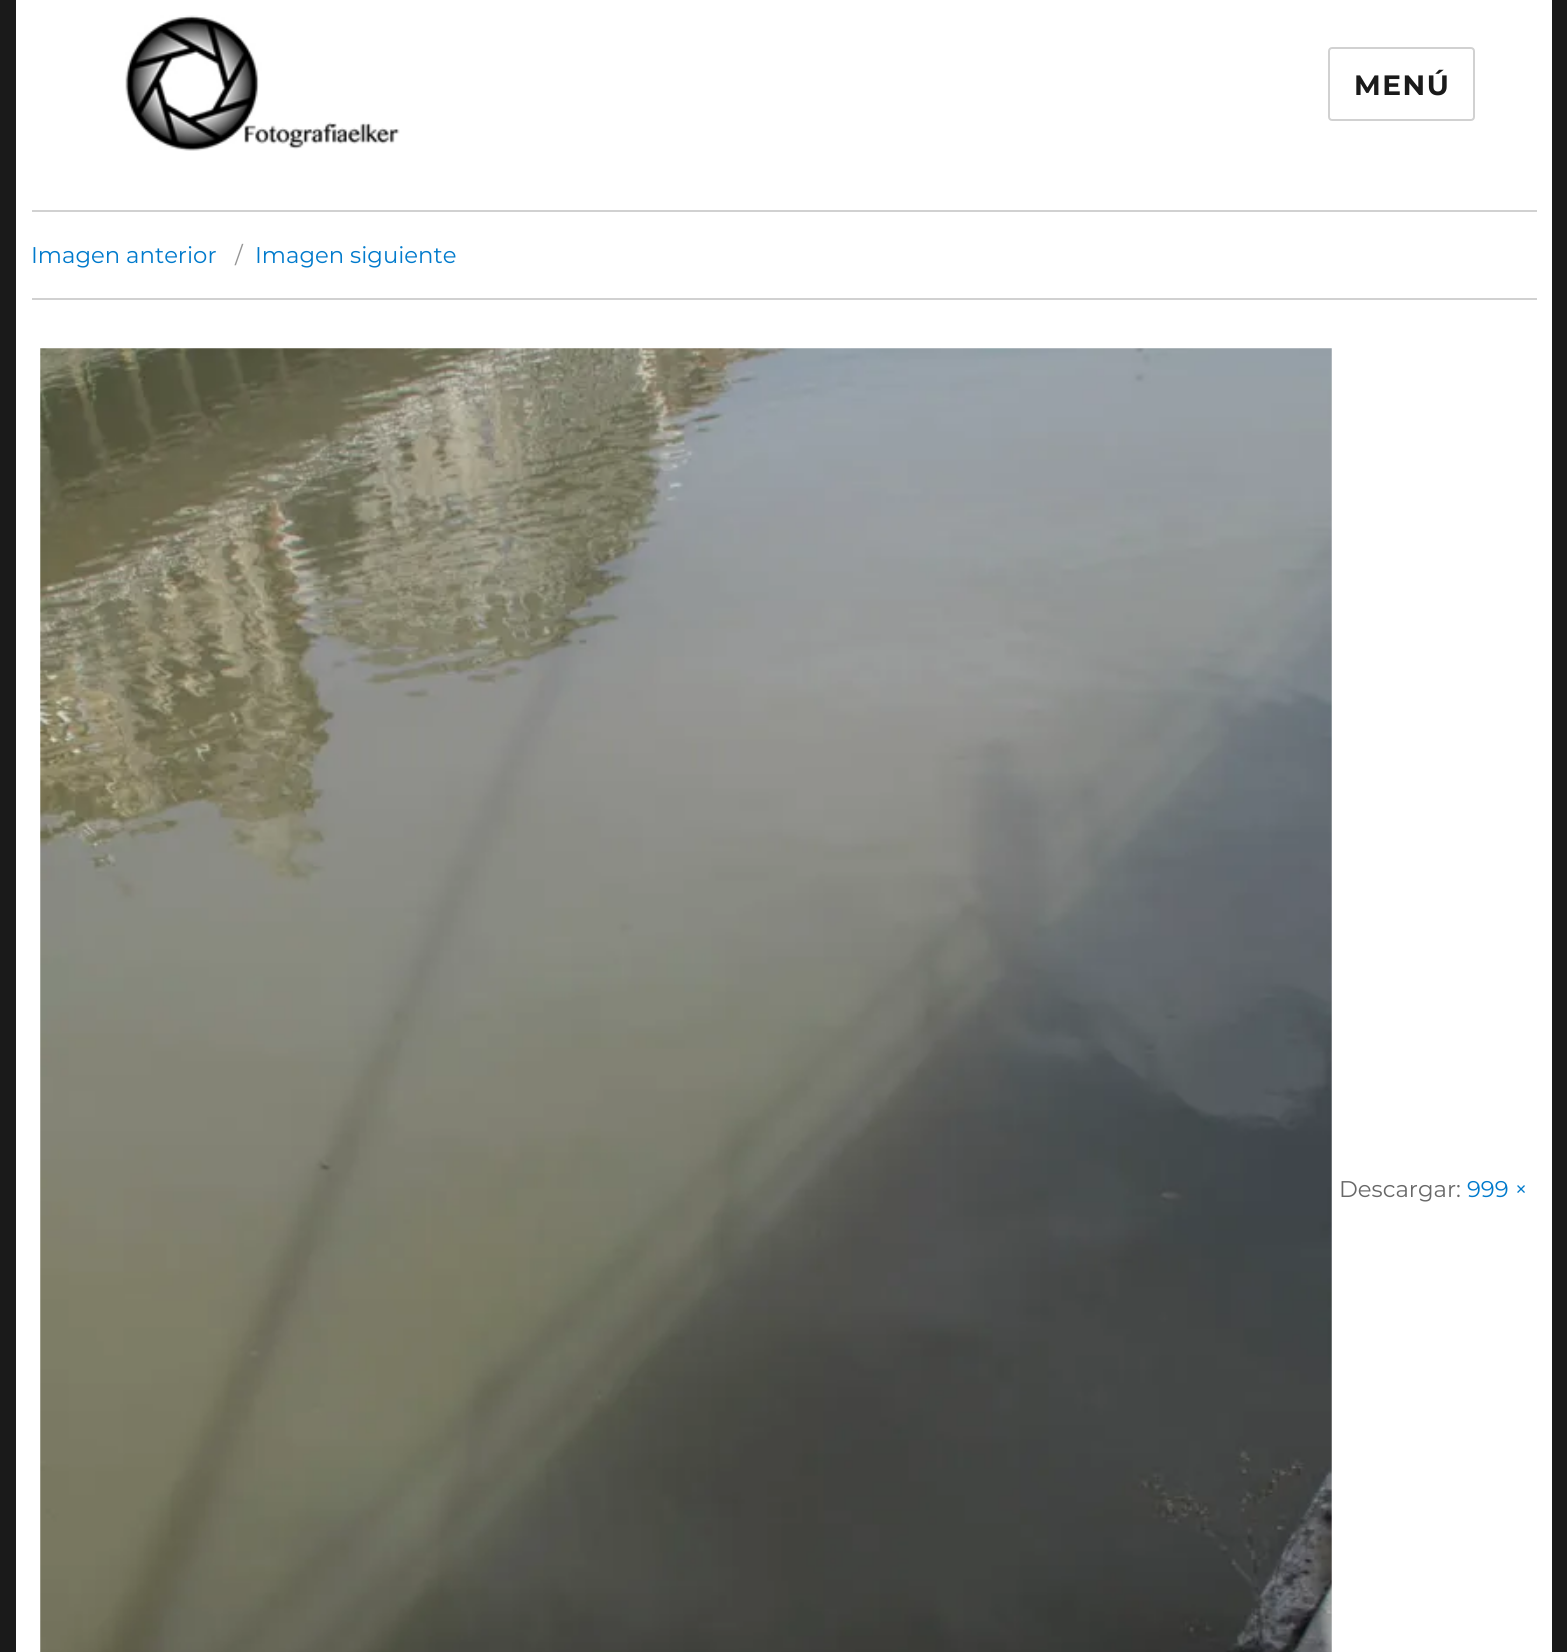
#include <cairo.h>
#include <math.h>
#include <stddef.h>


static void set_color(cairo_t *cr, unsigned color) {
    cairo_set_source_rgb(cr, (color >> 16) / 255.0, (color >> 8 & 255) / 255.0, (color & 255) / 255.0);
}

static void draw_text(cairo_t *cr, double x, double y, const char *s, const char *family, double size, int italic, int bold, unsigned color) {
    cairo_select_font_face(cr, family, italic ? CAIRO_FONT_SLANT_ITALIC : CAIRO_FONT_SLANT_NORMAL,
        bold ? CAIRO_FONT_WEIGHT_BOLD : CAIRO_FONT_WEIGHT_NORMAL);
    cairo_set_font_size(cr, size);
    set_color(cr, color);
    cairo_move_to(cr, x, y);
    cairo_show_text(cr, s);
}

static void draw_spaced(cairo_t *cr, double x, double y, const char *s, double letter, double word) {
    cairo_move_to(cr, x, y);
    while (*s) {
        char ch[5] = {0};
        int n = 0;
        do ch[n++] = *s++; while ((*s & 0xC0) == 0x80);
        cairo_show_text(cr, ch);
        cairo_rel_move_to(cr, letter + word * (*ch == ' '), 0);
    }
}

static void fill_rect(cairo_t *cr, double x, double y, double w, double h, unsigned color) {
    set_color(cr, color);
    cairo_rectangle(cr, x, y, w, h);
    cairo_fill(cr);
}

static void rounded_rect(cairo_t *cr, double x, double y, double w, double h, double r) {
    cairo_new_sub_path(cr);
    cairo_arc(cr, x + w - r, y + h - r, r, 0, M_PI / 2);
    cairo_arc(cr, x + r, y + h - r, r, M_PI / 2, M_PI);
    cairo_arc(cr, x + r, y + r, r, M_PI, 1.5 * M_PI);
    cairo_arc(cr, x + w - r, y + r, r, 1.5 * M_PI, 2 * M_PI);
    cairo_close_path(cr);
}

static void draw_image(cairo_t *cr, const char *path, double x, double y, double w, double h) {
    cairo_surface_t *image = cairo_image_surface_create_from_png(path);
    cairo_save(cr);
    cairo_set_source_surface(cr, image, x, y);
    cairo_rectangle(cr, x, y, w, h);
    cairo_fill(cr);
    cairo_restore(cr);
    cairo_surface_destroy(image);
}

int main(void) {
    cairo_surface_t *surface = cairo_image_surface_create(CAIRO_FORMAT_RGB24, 1567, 1652);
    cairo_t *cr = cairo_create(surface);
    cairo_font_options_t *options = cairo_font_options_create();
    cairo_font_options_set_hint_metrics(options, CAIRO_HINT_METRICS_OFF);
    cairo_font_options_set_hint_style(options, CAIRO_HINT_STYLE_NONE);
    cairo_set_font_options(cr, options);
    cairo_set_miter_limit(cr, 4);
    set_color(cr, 0x1A1A1A);
    cairo_paint(cr);
    fill_rect(cr, 16, 0, 1536, 1652, 0xFFFFFF);
    draw_image(cr, "assets/img1.png", 125, 15, 275, 136);
    rounded_rect(cr, 1329, 48, 145, 72, 3);
    set_color(cr, 0xD1D1D1);
    cairo_stroke(cr);
    cairo_select_font_face(cr, "Montserrat", CAIRO_FONT_SLANT_NORMAL, CAIRO_FONT_WEIGHT_BOLD);
    cairo_set_font_size(cr, 28);
    set_color(cr, 0x1A1A1A);
    draw_spaced(cr, 1354, 95, "MENÚ", 1.5, 0);
    fill_rect(cr, 32, 210, 1505, 2, 0xD1D1D1);
    fill_rect(cr, 32, 298, 1505, 2, 0xD1D1D1);
    draw_text(cr, 31, 263, "Imagen anterior", "Montserrat", 22.75, 0, 0, 0x007ACC);
    draw_text(cr, 235, 263, "/", "Montserrat", 22.75, 0, 0, 0x959595);
    draw_text(cr, 255, 263, "Imagen siguiente", "Montserrat", 22.75, 0, 0, 0x007ACC);
    draw_image(cr, "assets/img2.png", 40, 348, 1292, 1304);
    draw_text(cr, 1339, 1197, "Descargar:", "Montserrat", 22.75, 0, 0, 0x686868);
    draw_text(cr, 1467, 1197, "999 ×", "Montserrat", 22.75, 0, 0, 0x007ACC);
    cairo_surface_write_to_png(surface, "output.png");
    cairo_font_options_destroy(options);
    cairo_destroy(cr);
    cairo_surface_destroy(surface);
    return 0;
}
